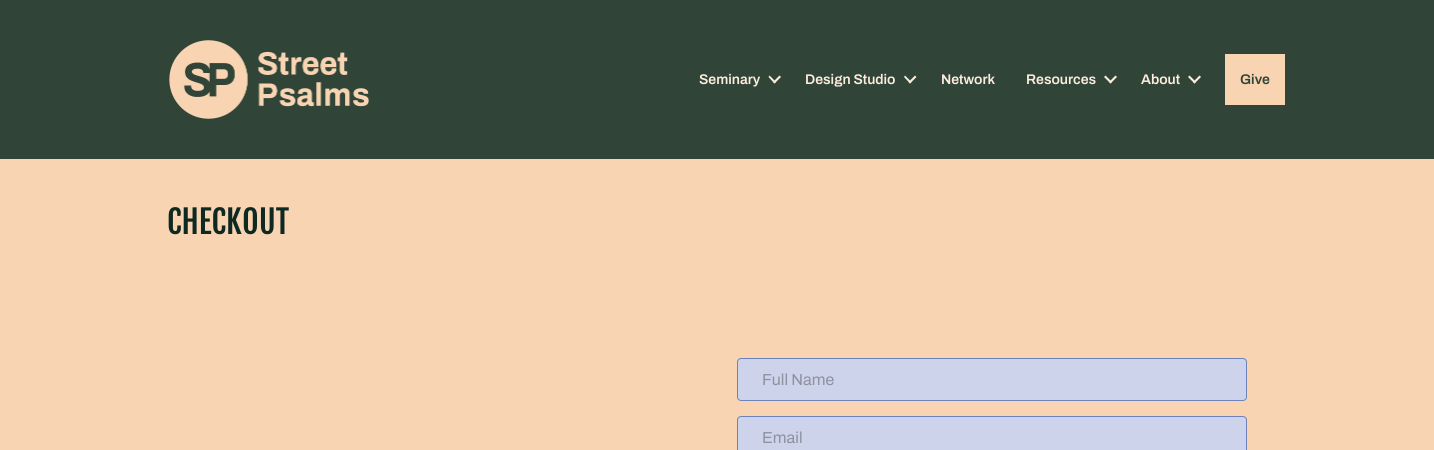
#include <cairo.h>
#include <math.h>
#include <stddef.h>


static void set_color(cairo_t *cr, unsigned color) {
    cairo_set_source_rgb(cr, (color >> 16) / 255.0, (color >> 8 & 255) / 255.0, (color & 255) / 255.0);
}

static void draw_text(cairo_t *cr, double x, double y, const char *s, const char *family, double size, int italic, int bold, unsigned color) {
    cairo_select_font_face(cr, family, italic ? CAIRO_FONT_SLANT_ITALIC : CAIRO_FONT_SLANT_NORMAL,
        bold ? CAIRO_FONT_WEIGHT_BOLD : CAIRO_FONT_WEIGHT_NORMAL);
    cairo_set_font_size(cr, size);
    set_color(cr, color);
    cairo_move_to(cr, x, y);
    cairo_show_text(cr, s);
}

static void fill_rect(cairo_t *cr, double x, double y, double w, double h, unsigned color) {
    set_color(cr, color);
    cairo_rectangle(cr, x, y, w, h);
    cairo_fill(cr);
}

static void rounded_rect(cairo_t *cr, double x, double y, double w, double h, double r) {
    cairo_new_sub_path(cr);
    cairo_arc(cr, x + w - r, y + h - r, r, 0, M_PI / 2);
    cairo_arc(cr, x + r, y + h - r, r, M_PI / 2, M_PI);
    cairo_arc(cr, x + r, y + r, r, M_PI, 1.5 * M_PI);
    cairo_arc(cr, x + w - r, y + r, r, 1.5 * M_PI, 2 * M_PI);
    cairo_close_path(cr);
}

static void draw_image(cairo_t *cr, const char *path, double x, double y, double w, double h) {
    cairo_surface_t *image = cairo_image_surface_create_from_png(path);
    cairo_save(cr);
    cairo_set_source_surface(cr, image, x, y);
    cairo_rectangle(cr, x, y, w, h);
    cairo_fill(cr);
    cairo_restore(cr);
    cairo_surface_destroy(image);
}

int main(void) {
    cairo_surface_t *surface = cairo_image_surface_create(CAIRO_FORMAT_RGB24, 1434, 450);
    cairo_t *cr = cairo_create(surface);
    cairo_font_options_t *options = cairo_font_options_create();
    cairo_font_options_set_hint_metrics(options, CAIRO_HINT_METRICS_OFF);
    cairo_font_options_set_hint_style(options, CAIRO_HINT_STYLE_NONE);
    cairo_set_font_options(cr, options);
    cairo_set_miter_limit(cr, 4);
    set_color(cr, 0xF8D4B2);
    cairo_paint(cr);
    fill_rect(cr, 0, 0, 1434, 159, 0x304438);
    draw_image(cr, "assets/img1.png", 169, 40, 200, 79);
    draw_text(cr, 699, 84, "Seminary", "Archivo SemiBold", 14, 0, 0, 0xFCECDC);
    cairo_new_path(cr);
    cairo_move_to(cr, 779.5, 75.5);
    cairo_line_to(cr, 781, 77);
    cairo_line_to(cr, 774.5, 83.5);
    cairo_line_to(cr, 773, 82);
    cairo_close_path(cr);
    cairo_fill(cr);
    cairo_new_path(cr);
    cairo_move_to(cr, 769.5, 75.5);
    cairo_line_to(cr, 776, 82);
    cairo_line_to(cr, 774.5, 83.5);
    cairo_line_to(cr, 768.5, 77);
    cairo_close_path(cr);
    cairo_fill(cr);
    draw_text(cr, 805, 84, "Design Studio", "Archivo SemiBold", 14, 0, 0, 0xFCECDC);
    cairo_new_path(cr);
    cairo_move_to(cr, 915, 75.5);
    cairo_line_to(cr, 916.5, 77);
    cairo_line_to(cr, 910, 83.5);
    cairo_line_to(cr, 908.5, 82);
    cairo_close_path(cr);
    cairo_fill(cr);
    cairo_new_path(cr);
    cairo_move_to(cr, 905, 75.5);
    cairo_line_to(cr, 911.5, 82);
    cairo_line_to(cr, 910, 83.5);
    cairo_line_to(cr, 904, 77);
    cairo_close_path(cr);
    cairo_fill(cr);
    draw_text(cr, 941, 84, "Network", "Archivo SemiBold", 14, 0, 0, 0xFCECDC);
    draw_text(cr, 1026, 84, "Resources", "Archivo SemiBold", 14, 0, 0, 0xFCECDC);
    cairo_new_path(cr);
    cairo_move_to(cr, 1115.5, 75.5);
    cairo_line_to(cr, 1117, 77);
    cairo_line_to(cr, 1110.5, 83.5);
    cairo_line_to(cr, 1109, 82);
    cairo_close_path(cr);
    cairo_fill(cr);
    cairo_new_path(cr);
    cairo_move_to(cr, 1105.5, 75.5);
    cairo_line_to(cr, 1112, 82);
    cairo_line_to(cr, 1110.5, 83.5);
    cairo_line_to(cr, 1104, 77);
    cairo_close_path(cr);
    cairo_fill(cr);
    draw_text(cr, 1141, 84, "About", "Archivo SemiBold", 14, 0, 0, 0xFCECDC);
    cairo_new_path(cr);
    cairo_move_to(cr, 1199.5, 75.5);
    cairo_line_to(cr, 1201, 77);
    cairo_line_to(cr, 1194.5, 83.5);
    cairo_line_to(cr, 1193, 82);
    cairo_close_path(cr);
    cairo_fill(cr);
    cairo_new_path(cr);
    cairo_move_to(cr, 1189.5, 75.5);
    cairo_line_to(cr, 1196, 82);
    cairo_line_to(cr, 1194.5, 83.5);
    cairo_line_to(cr, 1188, 77);
    cairo_close_path(cr);
    cairo_fill(cr);
    fill_rect(cr, 1225, 54, 60, 51, 0xF8D4B2);
    draw_text(cr, 1240, 84, "Give", "Archivo SemiBold", 14, 0, 0, 0x304438);
    draw_text(cr, 167, 234, "CHECKOUT", "Fjalla One", 32, 0, 0, 0x0D2922);
    set_color(cr, 0xCDD3EB);
    rounded_rect(cr, 737.5, 358.5, 509, 42, 3.5);
    cairo_fill_preserve(cr);
    set_color(cr, 0x6D82BB);
    cairo_set_line_width(cr, 1);
    cairo_stroke(cr);
    draw_text(cr, 762, 385, "Full Name", "Archivo", 16, 0, 0, 0x8E919F);
    set_color(cr, 0xCDD3EB);
    rounded_rect(cr, 737.5, 416.5, 509, 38, 3.5);
    cairo_fill_preserve(cr);
    set_color(cr, 0x6D82BB);
    cairo_stroke(cr);
    draw_text(cr, 762, 443, "Email", "Archivo", 16, 0, 0, 0x8E919F);
    cairo_surface_write_to_png(surface, "output.png");
    cairo_font_options_destroy(options);
    cairo_destroy(cr);
    cairo_surface_destroy(surface);
    return 0;
}
